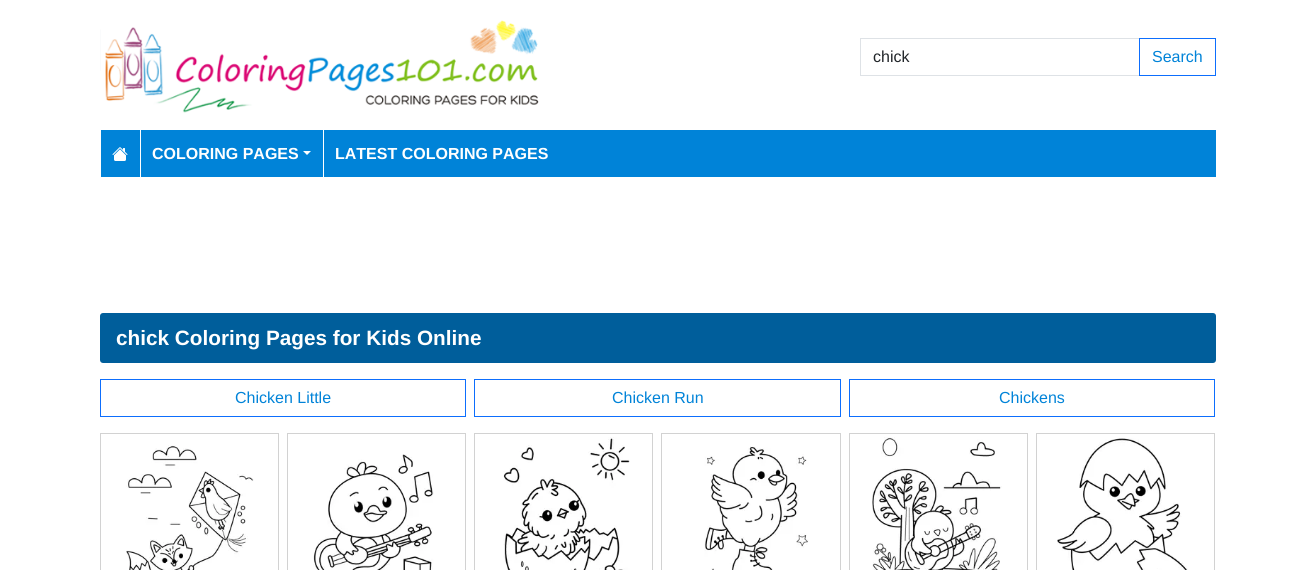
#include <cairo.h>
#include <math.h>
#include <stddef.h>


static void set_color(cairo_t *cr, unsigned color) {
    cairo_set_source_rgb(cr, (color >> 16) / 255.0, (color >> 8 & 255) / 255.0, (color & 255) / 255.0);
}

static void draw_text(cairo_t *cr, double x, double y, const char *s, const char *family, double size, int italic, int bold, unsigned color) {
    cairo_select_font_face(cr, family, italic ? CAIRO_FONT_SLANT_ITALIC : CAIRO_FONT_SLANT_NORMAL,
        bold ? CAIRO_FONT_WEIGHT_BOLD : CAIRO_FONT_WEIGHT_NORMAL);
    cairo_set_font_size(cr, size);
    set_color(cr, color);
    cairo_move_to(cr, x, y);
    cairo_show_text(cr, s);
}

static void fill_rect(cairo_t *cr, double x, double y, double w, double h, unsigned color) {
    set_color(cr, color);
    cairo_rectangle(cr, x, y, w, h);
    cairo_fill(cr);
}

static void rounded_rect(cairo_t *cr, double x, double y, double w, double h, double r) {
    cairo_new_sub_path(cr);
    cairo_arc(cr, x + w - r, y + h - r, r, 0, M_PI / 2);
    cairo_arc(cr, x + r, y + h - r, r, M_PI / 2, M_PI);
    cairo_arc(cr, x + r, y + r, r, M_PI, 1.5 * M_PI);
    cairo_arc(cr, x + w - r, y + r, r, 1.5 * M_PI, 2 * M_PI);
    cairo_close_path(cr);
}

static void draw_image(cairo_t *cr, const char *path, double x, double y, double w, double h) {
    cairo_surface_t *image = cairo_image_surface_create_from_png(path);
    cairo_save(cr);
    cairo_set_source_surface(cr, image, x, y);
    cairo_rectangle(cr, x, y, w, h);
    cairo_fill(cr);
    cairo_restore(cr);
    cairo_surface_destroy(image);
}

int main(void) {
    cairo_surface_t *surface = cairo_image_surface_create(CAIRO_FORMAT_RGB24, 1315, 570);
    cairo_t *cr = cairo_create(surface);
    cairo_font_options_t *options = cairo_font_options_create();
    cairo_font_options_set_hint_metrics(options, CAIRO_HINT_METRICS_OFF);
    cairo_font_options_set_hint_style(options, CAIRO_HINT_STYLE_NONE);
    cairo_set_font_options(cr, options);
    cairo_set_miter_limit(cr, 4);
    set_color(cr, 0xFFFFFF);
    cairo_paint(cr);
    draw_image(cr, "assets/img1.png", 100, 20, 439, 93);
    cairo_rectangle(cr, 860.5, 38.5, 279, 37);
    set_color(cr, 0xDEE2E6);
    cairo_set_line_width(cr, 1);
    cairo_stroke(cr);
    draw_text(cr, 873, 62, "chick", "Liberation Sans", 16, 0, 0, 0x212529);
    cairo_rectangle(cr, 1139.5, 38.5, 76, 37);
    set_color(cr, 0x0D6EFD);
    cairo_stroke(cr);
    draw_text(cr, 1152, 62, "Search", "Liberation Sans", 16, 0, 0, 0x0083D8);
    fill_rect(cr, 101, 130, 1115, 47, 0x0083D8);
    draw_image(cr, "assets/img2.png", 112, 147, 16, 14);
    fill_rect(cr, 140, 130, 1, 47, 0xFFFFFF);
    draw_text(cr, 152, 159, "COLORING PAGES", "Liberation Sans", 16, 0, 1, 0xFFFFFF);
    cairo_new_path(cr);
    cairo_move_to(cr, 303, 151);
    cairo_line_to(cr, 311, 151);
    cairo_line_to(cr, 307, 155);
    cairo_close_path(cr);
    cairo_fill(cr);
    fill_rect(cr, 323, 130, 1, 47, 0xFFFFFF);
    draw_text(cr, 335, 159, "LATEST COLORING PAGES", "Liberation Sans", 16, 0, 1, 0xFFFFFF);
    set_color(cr, 0x005E9B);
    rounded_rect(cr, 100, 313, 1116, 50, 3);
    cairo_fill(cr);
    draw_text(cr, 116, 345, "chick Coloring Pages for Kids Online", "Liberation Sans", 20.75, 0, 1, 0xFFFFFF);
    cairo_rectangle(cr, 100.5, 379.5, 365, 37);
    set_color(cr, 0x0D6EFD);
    cairo_stroke(cr);
    draw_text(cr, 235, 403, "Chicken Little", "Liberation Sans", 16, 0, 0, 0x0083D8);
    cairo_rectangle(cr, 474.5, 379.5, 366, 37);
    set_color(cr, 0x0D6EFD);
    cairo_stroke(cr);
    draw_text(cr, 612, 403, "Chicken Run", "Liberation Sans", 16, 0, 0, 0x0083D8);
    cairo_rectangle(cr, 849.5, 379.5, 365, 37);
    set_color(cr, 0x0D6EFD);
    cairo_stroke(cr);
    draw_text(cr, 999, 403, "Chickens", "Liberation Sans", 16, 0, 0, 0x0083D8);
    cairo_rectangle(cr, 100.5, 433.5, 178, 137);
    set_color(cr, 0xD2D2D2);
    cairo_stroke(cr);
    draw_image(cr, "assets/img3.png", 126, 445, 128, 125);
    cairo_rectangle(cr, 287.5, 433.5, 178, 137);
    cairo_stroke(cr);
    draw_image(cr, "assets/img4.png", 313, 454, 121, 116);
    cairo_rectangle(cr, 474.5, 433.5, 178, 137);
    cairo_stroke(cr);
    draw_image(cr, "assets/img5.png", 503, 437, 127, 133);
    cairo_rectangle(cr, 661.5, 433.5, 179, 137);
    cairo_stroke(cr);
    draw_image(cr, "assets/img6.png", 704, 446, 105, 124);
    cairo_rectangle(cr, 849.5, 433.5, 178, 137);
    cairo_stroke(cr);
    draw_image(cr, "assets/img7.png", 872, 437, 130, 133);
    cairo_rectangle(cr, 1036.5, 433.5, 178, 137);
    cairo_stroke(cr);
    draw_image(cr, "assets/img8.png", 1057, 438, 131, 132);
    cairo_surface_write_to_png(surface, "output.png");
    cairo_font_options_destroy(options);
    cairo_destroy(cr);
    cairo_surface_destroy(surface);
    return 0;
}
